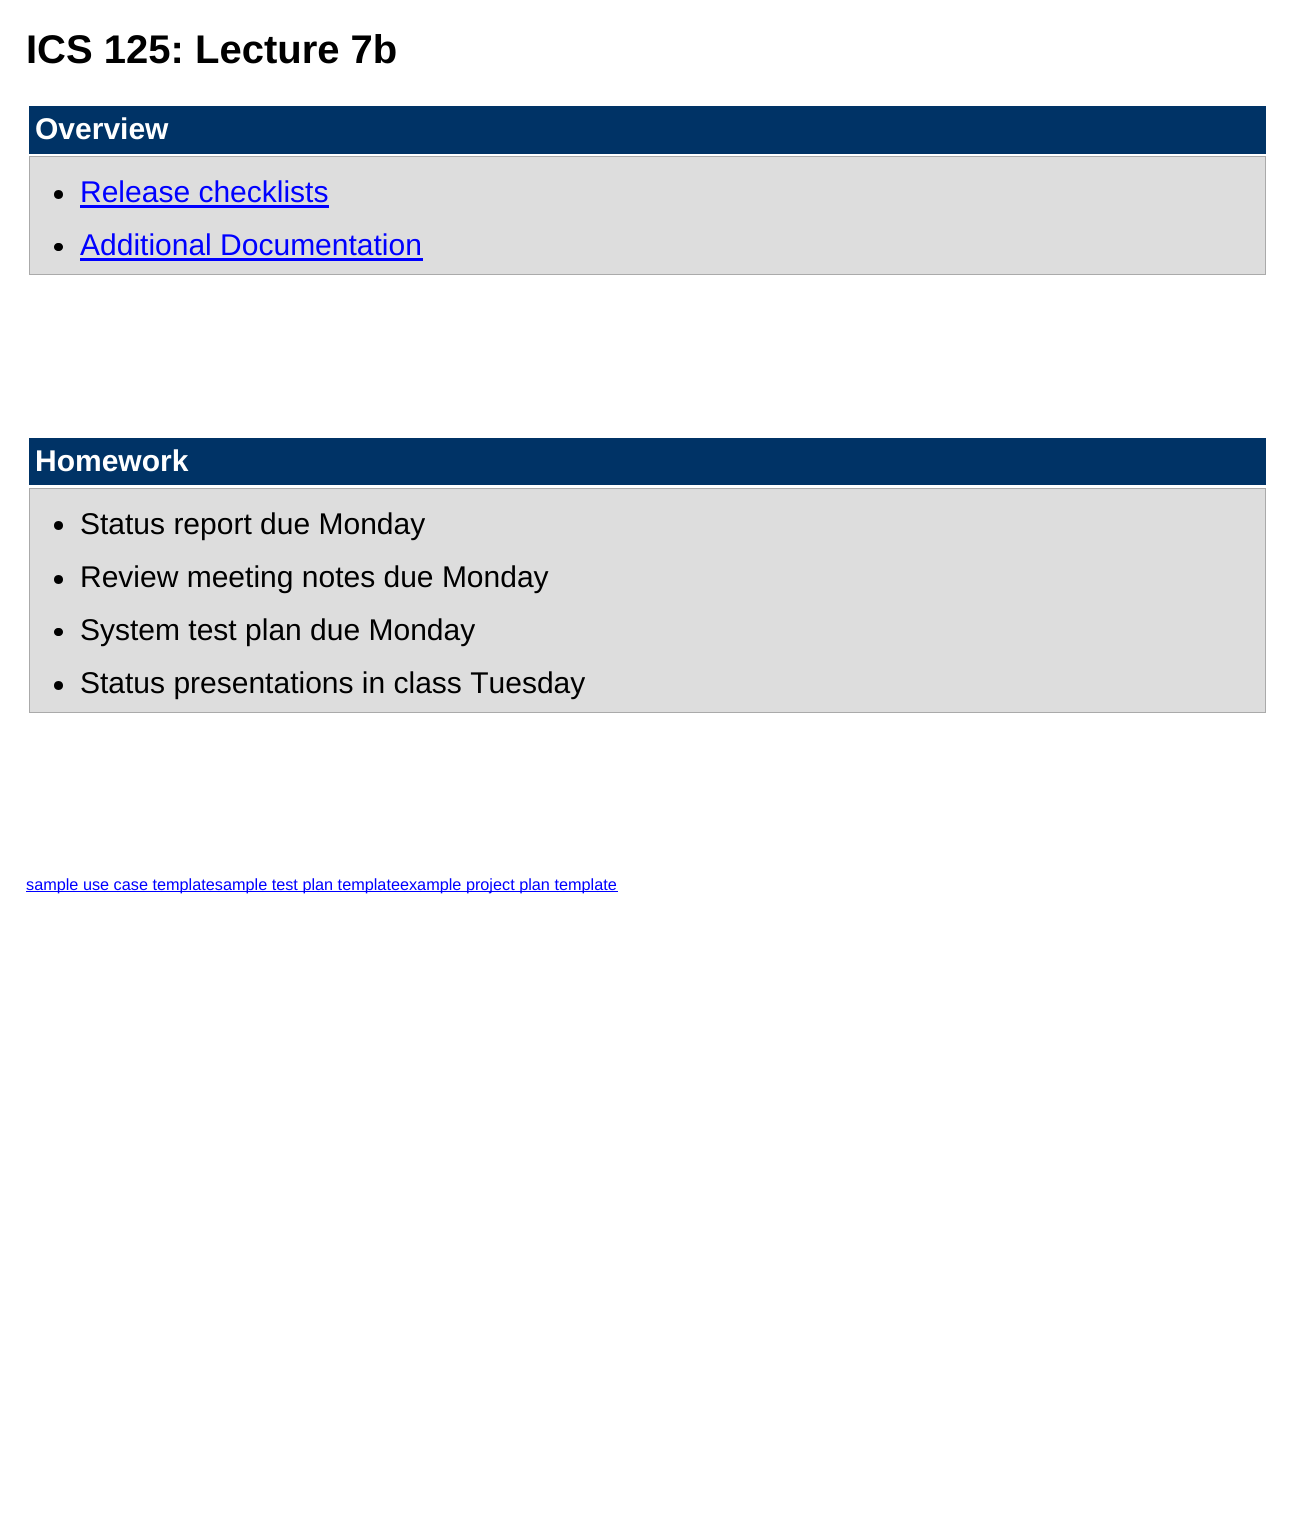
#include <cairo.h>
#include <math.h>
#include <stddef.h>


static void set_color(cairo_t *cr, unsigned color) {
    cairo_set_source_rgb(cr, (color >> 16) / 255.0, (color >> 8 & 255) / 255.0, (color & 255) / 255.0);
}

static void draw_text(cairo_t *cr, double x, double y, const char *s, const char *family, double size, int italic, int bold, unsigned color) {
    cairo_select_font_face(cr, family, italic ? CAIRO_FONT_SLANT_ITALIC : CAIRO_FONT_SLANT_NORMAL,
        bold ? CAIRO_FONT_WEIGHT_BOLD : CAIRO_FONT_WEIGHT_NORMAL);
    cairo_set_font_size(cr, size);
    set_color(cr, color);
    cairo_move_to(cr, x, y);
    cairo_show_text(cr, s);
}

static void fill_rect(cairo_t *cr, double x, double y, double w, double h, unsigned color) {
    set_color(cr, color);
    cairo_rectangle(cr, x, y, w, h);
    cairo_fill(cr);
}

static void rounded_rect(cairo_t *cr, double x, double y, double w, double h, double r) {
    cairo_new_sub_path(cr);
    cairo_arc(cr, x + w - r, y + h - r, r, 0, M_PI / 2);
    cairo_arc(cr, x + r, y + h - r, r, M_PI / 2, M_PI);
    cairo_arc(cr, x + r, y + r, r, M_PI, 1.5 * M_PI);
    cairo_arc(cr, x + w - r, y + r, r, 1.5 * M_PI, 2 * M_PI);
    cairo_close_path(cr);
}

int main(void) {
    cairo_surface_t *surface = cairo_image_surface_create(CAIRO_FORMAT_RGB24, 1295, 1519);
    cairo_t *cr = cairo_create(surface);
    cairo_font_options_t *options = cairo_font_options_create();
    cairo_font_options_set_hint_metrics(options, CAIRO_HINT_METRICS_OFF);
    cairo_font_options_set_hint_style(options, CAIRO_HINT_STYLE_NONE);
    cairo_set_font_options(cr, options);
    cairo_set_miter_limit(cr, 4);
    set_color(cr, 0xFFFFFF);
    cairo_paint(cr);
    draw_text(cr, 26, 63, "ICS 125: Lecture 7b", "Liberation Sans", 40, 0, 1, 0x000000);
    fill_rect(cr, 29, 106, 1237, 48, 0x003366);
    draw_text(cr, 35, 139, "Overview", "Liberation Sans", 30, 0, 1, 0xFFFFFF);
    set_color(cr, 0xDDDDDD);
    cairo_rectangle(cr, 29.5, 156.5, 1236, 118);
    cairo_fill_preserve(cr);
    set_color(cr, 0xAAAAAA);
    cairo_set_line_width(cr, 1);
    cairo_stroke(cr);
    set_color(cr, 0x000000);
    cairo_arc(cr, 58.5, 194.5, 4.5, 0, 2 * M_PI);
    cairo_fill(cr);
    draw_text(cr, 80, 202, "Release checklists", "Liberation Sans", 30, 0, 0, 0x0000FF);
    fill_rect(cr, 80, 205, 249, 3, 0x0000FF);
    set_color(cr, 0x000000);
    rounded_rect(cr, 54, 243, 9, 8, 4);
    cairo_fill(cr);
    draw_text(cr, 80, 255, "Additional Documentation", "Liberation Sans", 30, 0, 0, 0x0000FF);
    fill_rect(cr, 80, 258, 343, 3, 0x0000FF);
    fill_rect(cr, 29, 438, 1237, 47, 0x003366);
    draw_text(cr, 35, 471, "Homework", "Liberation Sans", 30, 0, 1, 0xFFFFFF);
    set_color(cr, 0xDDDDDD);
    cairo_rectangle(cr, 29.5, 488.5, 1236, 224);
    cairo_fill_preserve(cr);
    set_color(cr, 0xAAAAAA);
    cairo_stroke(cr);
    set_color(cr, 0x000000);
    cairo_arc(cr, 58.5, 525.5, 4.5, 0, 2 * M_PI);
    cairo_fill(cr);
    draw_text(cr, 80, 534, "Status report due Monday", "Liberation Sans", 30, 0, 0, 0x000000);
    cairo_new_path(cr);
    cairo_arc(cr, 58.5, 579.5, 4.5, 0, 2 * M_PI);
    cairo_fill(cr);
    draw_text(cr, 80, 587, "Review meeting notes due Monday", "Liberation Sans", 30, 0, 0, 0x000000);
    rounded_rect(cr, 54, 628, 9, 8, 4);
    cairo_fill(cr);
    draw_text(cr, 80, 640, "System test plan due Monday", "Liberation Sans", 30, 0, 0, 0x000000);
    cairo_new_path(cr);
    cairo_arc(cr, 58.5, 685.5, 4.5, 0, 2 * M_PI);
    cairo_fill(cr);
    draw_text(cr, 80, 693, "Status presentations in class Tuesday", "Liberation Sans", 30, 0, 0, 0x000000);
    fill_rect(cr, 26, 891, 592, 1, 0x0000FF);
    draw_text(cr, 26, 890, "sample use case templatesample test plan templateexample project plan template", "Liberation Sans", 16.25, 0, 0, 0x0000FF);
    cairo_surface_write_to_png(surface, "output.png");
    cairo_font_options_destroy(options);
    cairo_destroy(cr);
    cairo_surface_destroy(surface);
    return 0;
}
